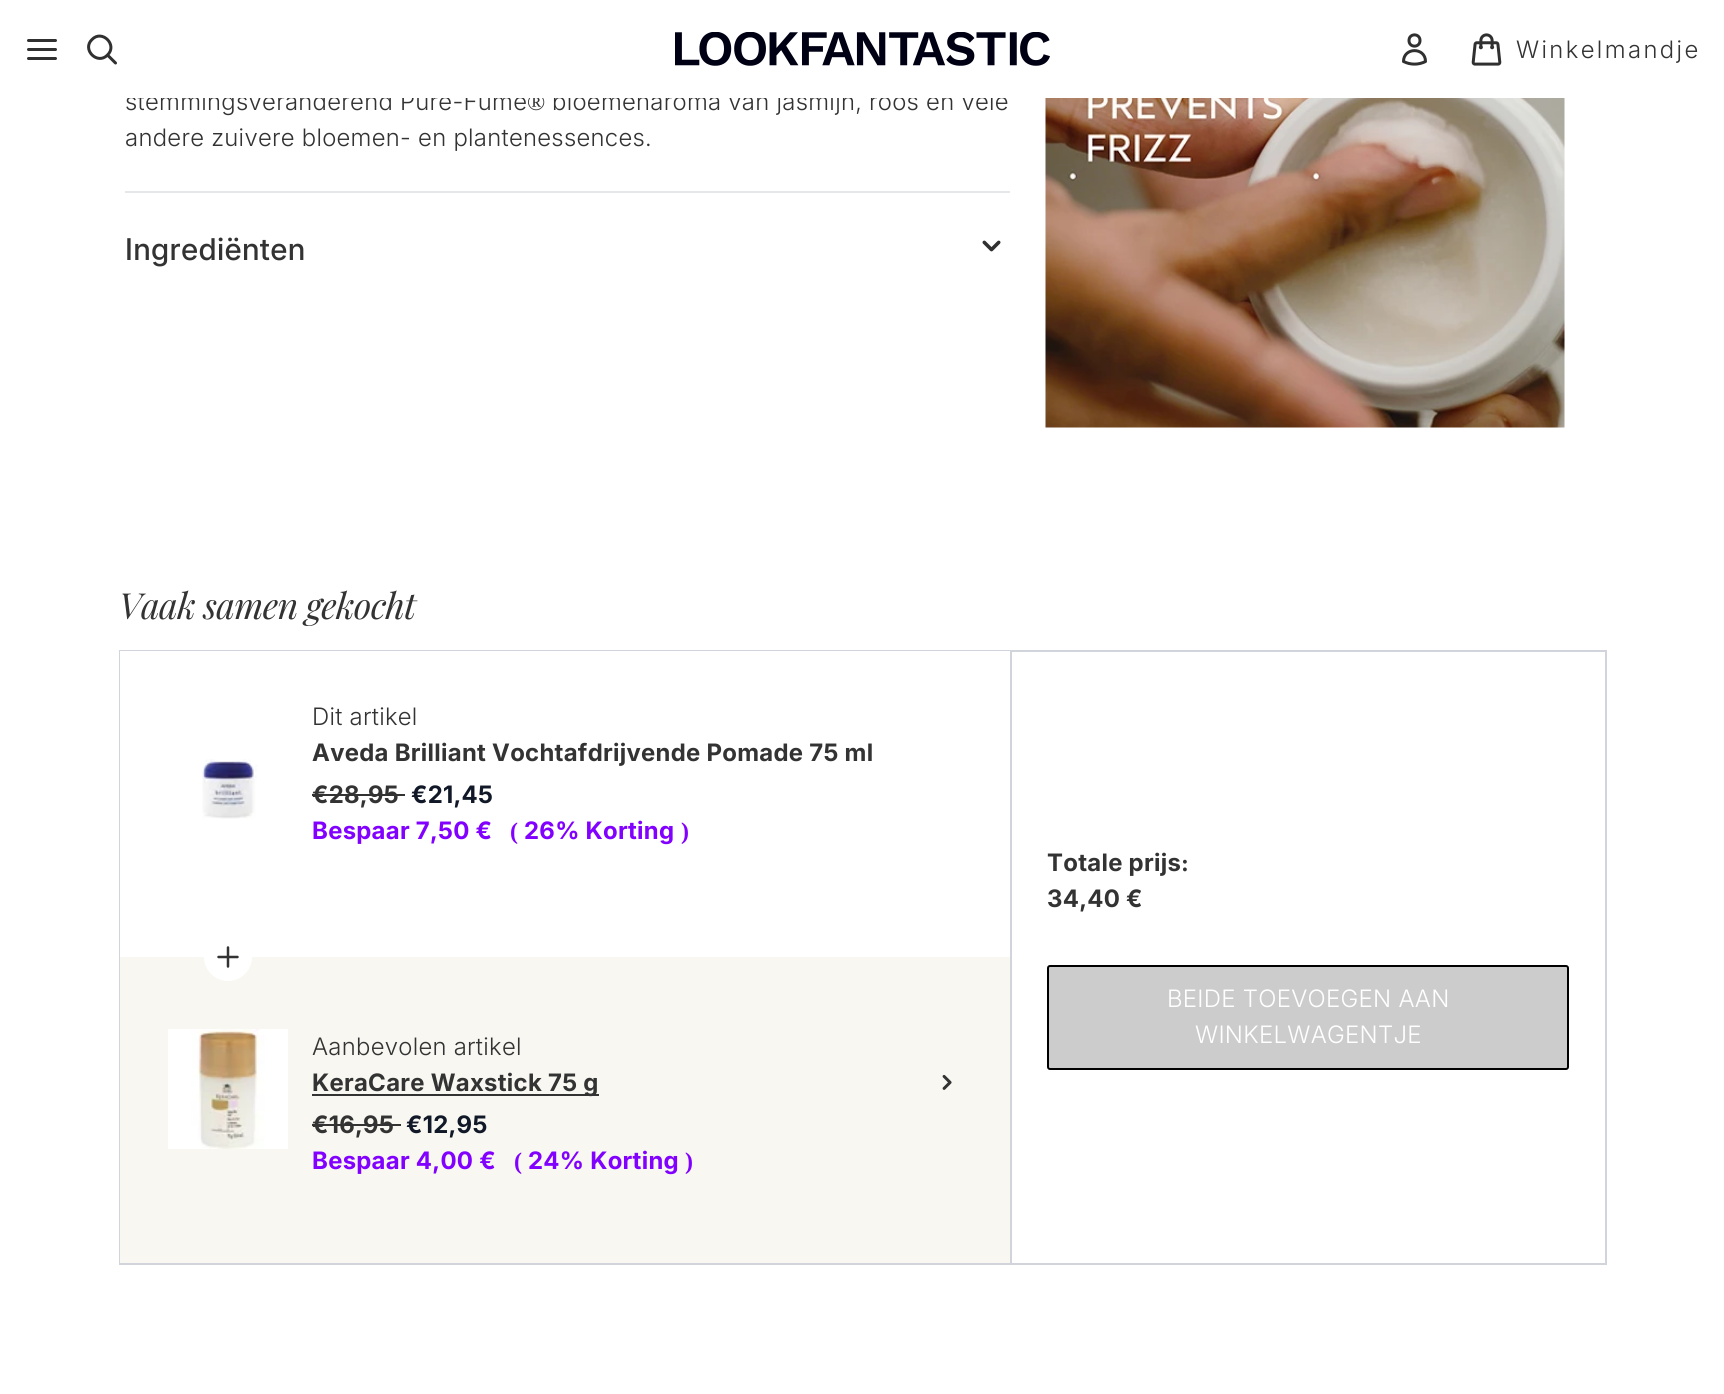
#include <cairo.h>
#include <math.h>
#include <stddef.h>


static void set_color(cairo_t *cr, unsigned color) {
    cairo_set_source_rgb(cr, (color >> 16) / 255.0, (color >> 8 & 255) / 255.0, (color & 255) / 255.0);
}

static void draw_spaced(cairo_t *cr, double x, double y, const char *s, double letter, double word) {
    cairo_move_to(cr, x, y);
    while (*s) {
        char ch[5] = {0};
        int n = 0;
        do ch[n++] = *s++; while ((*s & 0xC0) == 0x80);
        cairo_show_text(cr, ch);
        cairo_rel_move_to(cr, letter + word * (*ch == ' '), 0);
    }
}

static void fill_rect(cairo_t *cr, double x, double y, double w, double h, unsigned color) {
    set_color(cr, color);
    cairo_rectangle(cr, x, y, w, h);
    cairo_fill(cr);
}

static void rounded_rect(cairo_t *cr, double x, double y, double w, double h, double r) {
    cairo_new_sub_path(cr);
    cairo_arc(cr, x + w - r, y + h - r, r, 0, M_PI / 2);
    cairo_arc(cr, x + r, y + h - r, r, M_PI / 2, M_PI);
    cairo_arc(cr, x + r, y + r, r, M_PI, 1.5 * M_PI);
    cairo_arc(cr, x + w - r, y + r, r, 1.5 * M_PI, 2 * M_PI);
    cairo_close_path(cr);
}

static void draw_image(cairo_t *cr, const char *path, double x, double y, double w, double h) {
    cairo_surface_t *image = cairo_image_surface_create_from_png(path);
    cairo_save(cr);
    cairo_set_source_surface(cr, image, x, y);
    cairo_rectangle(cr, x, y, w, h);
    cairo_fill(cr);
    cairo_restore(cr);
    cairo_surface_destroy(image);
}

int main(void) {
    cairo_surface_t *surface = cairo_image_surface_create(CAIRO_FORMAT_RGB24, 1724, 1394);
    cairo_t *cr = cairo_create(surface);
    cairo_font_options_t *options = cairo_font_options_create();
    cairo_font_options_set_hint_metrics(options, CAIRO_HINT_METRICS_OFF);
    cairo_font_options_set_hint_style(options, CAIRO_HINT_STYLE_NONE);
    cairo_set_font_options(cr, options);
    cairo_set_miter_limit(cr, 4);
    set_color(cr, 0xFFFFFF);
    cairo_paint(cr);
    cairo_select_font_face(cr, "Inter Light", CAIRO_FONT_SLANT_NORMAL, CAIRO_FONT_WEIGHT_NORMAL);
    cairo_set_font_size(cr, 24);
    set_color(cr, 0x333333);
    draw_spaced(cr, 125, 110, "stemmingsveranderend Pure-Fume", 0.3, 0);
    cairo_select_font_face(cr, "Liberation Serif", CAIRO_FONT_SLANT_NORMAL, CAIRO_FONT_WEIGHT_NORMAL);
    draw_spaced(cr, 527, 110, "®", 0.3, 0);
    cairo_select_font_face(cr, "Inter Light", CAIRO_FONT_SLANT_NORMAL, CAIRO_FONT_WEIGHT_NORMAL);
    draw_spaced(cr, 552, 110, "bloemenaroma van jasmijn, roos en vele", 0.3, 0);
    fill_rect(cr, 127, 92, 879, 6, 0xFFFFFF);
    cairo_new_path(cr);
    cairo_move_to(cr, 28.5, 49.5);
    cairo_line_to(cr, 55.5, 49.5);
    cairo_move_to(cr, 28.5, 40.5);
    cairo_line_to(cr, 55.5, 40.5);
    cairo_move_to(cr, 28.5, 58.5);
    cairo_line_to(cr, 55.5, 58.5);
    set_color(cr, 0x303030);
    cairo_set_line_width(cr, 3);
    cairo_set_line_cap(cr, CAIRO_LINE_CAP_ROUND);
    cairo_set_line_join(cr, CAIRO_LINE_JOIN_ROUND);
    cairo_stroke(cr);
    cairo_new_path(cr);
    cairo_move_to(cr, 115.5, 63);
    cairo_line_to(cr, 107.5, 55);
    cairo_move_to(cr, 107.5, 55);
    cairo_curve_to(cr, 118, 45, 102, 29, 92, 39.5);
    cairo_curve_to(cr, 81.5, 49.5, 97.5, 65.5, 107.5, 55);
    cairo_close_path(cr);
    cairo_stroke(cr);
    draw_image(cr, "assets/img1.png", 675, 32, 375, 34);
    cairo_new_path(cr);
    cairo_move_to(cr, 1420, 40.5);
    cairo_curve_to(cr, 1420, 48, 1409, 48, 1409, 40.5);
    cairo_curve_to(cr, 1409, 33, 1420, 33, 1420, 40.5);
    cairo_close_path(cr);
    cairo_move_to(cr, 1403.5, 61.5);
    cairo_curve_to(cr, 1403.5, 47, 1425.5, 47, 1425.5, 61.5);
    cairo_curve_to(cr, 1418.5, 65, 1410.5, 65, 1403.5, 61.5);
    cairo_close_path(cr);
    cairo_stroke(cr);
    draw_image(cr, "assets/img2.png", 1471, 33, 31, 33);
    set_color(cr, 0x333333);
    draw_spaced(cr, 1516, 58, "Winkelmandje", 2.4, 0);
    draw_spaced(cr, 125, 146, "andere zuivere bloemen- en plantenessences.", 0.3, 0);
    fill_rect(cr, 125, 191, 885, 2, 0xE5E7EB);
    cairo_select_font_face(cr, "Inter Medium", CAIRO_FONT_SLANT_NORMAL, CAIRO_FONT_WEIGHT_NORMAL);
    cairo_set_font_size(cr, 30);
    set_color(cr, 0x333333);
    draw_spaced(cr, 125, 260, "Ingrediënten", 0.3, 0);
    draw_image(cr, "assets/img3.png", 982, 240, 19, 12);
    draw_image(cr, "assets/img4.png", 1045, 98, 520, 330);
    cairo_select_font_face(cr, "Playfair Display", CAIRO_FONT_SLANT_ITALIC, CAIRO_FONT_WEIGHT_NORMAL);
    cairo_set_font_size(cr, 36);
    draw_spaced(cr, 119, 619, "Vaak samen gekocht", -0.75, 0);
    cairo_rectangle(cr, 120, 651, 1486, 613);
    set_color(cr, 0xD1D5DB);
    cairo_set_line_width(cr, 2);
    cairo_set_line_cap(cr, CAIRO_LINE_CAP_BUTT);
    cairo_set_line_join(cr, CAIRO_LINE_JOIN_MITER);
    cairo_stroke(cr);
    fill_rect(cr, 1010, 651, 2, 612, 0xD1D5DB);
    fill_rect(cr, 120, 651, 890, 234, 0xFFFFFF);
    draw_image(cr, "assets/img5.png", 202, 759, 56, 60);
    cairo_select_font_face(cr, "Inter Light", CAIRO_FONT_SLANT_NORMAL, CAIRO_FONT_WEIGHT_NORMAL);
    cairo_set_font_size(cr, 24);
    set_color(cr, 0x333333);
    draw_spaced(cr, 312, 725, "Dit artikel", 0.3, 0);
    cairo_select_font_face(cr, "Inter", CAIRO_FONT_SLANT_NORMAL, CAIRO_FONT_WEIGHT_BOLD);
    draw_spaced(cr, 312, 761, "Aveda Brilliant Vochtafdrijvende Pomade 75 ml", 0.3, 0);
    draw_spaced(cr, 312, 803, "€28,95", 0.3, 0);
    fill_rect(cr, 312, 794, 93, 2, 0x333333);
    set_color(cr, 0x111827);
    draw_spaced(cr, 411, 803, "€21,45", 0.3, 0);
    set_color(cr, 0x8100FF);
    draw_spaced(cr, 312, 839, "Bespaar 7,50 €", 0.3, 0);
    cairo_select_font_face(cr, "Liberation Serif", CAIRO_FONT_SLANT_NORMAL, CAIRO_FONT_WEIGHT_BOLD);
    draw_spaced(cr, 510, 839, "(", 0.3, 0);
    cairo_select_font_face(cr, "Inter", CAIRO_FONT_SLANT_NORMAL, CAIRO_FONT_WEIGHT_BOLD);
    draw_spaced(cr, 524, 839, "26% Korting", 0.3, 0);
    cairo_select_font_face(cr, "Liberation Serif", CAIRO_FONT_SLANT_NORMAL, CAIRO_FONT_WEIGHT_BOLD);
    draw_spaced(cr, 681, 839, ")", 0.3, 0);
    fill_rect(cr, 120, 885, 1, 72, 0xFFFFFF);
    fill_rect(cr, 120, 957, 890, 306, 0xF8F7F2);
    set_color(cr, 0xFFFFFF);
    cairo_new_path(cr);
    cairo_arc(cr, 228, 957, 24, 0, 2 * M_PI);
    cairo_fill(cr);
    cairo_new_path(cr);
    cairo_move_to(cr, 228, 947.5);
    cairo_line_to(cr, 228, 966.5);
    cairo_move_to(cr, 237.5, 957);
    cairo_line_to(cr, 218.5, 957);
    set_color(cr, 0x333333);
    cairo_set_line_width(cr, 2.5);
    cairo_set_line_cap(cr, CAIRO_LINE_CAP_ROUND);
    cairo_set_line_join(cr, CAIRO_LINE_JOIN_ROUND);
    cairo_stroke(cr);
    draw_image(cr, "assets/img6.png", 168, 1029, 120, 120);
    cairo_select_font_face(cr, "Inter Light", CAIRO_FONT_SLANT_NORMAL, CAIRO_FONT_WEIGHT_NORMAL);
    draw_spaced(cr, 312, 1055, "Aanbevolen artikel", 0.3, 0);
    fill_rect(cr, 312, 1094, 287, 2, 0x333333);
    cairo_select_font_face(cr, "Inter", CAIRO_FONT_SLANT_NORMAL, CAIRO_FONT_WEIGHT_BOLD);
    draw_spaced(cr, 312, 1091, "KeraCare Waxstick 75 g", 0.3, 0);
    draw_image(cr, "assets/img7.png", 942, 1074, 10, 16);
    draw_spaced(cr, 312, 1133, "€16,95", 0.3, 0);
    fill_rect(cr, 312, 1124, 89, 2, 0x333333);
    set_color(cr, 0x111827);
    draw_spaced(cr, 406, 1133, "€12,95", 0.3, 0);
    set_color(cr, 0x8100FF);
    draw_spaced(cr, 312, 1169, "Bespaar 4,00 €", 0.3, 0);
    cairo_select_font_face(cr, "Liberation Serif", CAIRO_FONT_SLANT_NORMAL, CAIRO_FONT_WEIGHT_BOLD);
    draw_spaced(cr, 514, 1169, "(", 0.3, 0);
    cairo_select_font_face(cr, "Inter", CAIRO_FONT_SLANT_NORMAL, CAIRO_FONT_WEIGHT_BOLD);
    draw_spaced(cr, 528, 1169, "24% Korting", 0.3, 0);
    cairo_select_font_face(cr, "Liberation Serif", CAIRO_FONT_SLANT_NORMAL, CAIRO_FONT_WEIGHT_BOLD);
    draw_spaced(cr, 685, 1169, ")", 0.3, 0);
    cairo_select_font_face(cr, "Inter", CAIRO_FONT_SLANT_NORMAL, CAIRO_FONT_WEIGHT_BOLD);
    set_color(cr, 0x333333);
    draw_spaced(cr, 1047, 871, "Totale prijs", 0.3, 0);
    cairo_select_font_face(cr, "Liberation Serif", CAIRO_FONT_SLANT_NORMAL, CAIRO_FONT_WEIGHT_BOLD);
    draw_spaced(cr, 1181, 871, ":", 0.3, 0);
    cairo_select_font_face(cr, "Inter", CAIRO_FONT_SLANT_NORMAL, CAIRO_FONT_WEIGHT_BOLD);
    draw_spaced(cr, 1047, 907, "34,40 €", 0.3, 0);
    set_color(cr, 0xCCCCCC);
    rounded_rect(cr, 1048, 966, 520, 103, 2);
    cairo_fill_preserve(cr);
    set_color(cr, 0x000000);
    cairo_set_line_width(cr, 2);
    cairo_set_line_cap(cr, CAIRO_LINE_CAP_BUTT);
    cairo_set_line_join(cr, CAIRO_LINE_JOIN_MITER);
    cairo_stroke(cr);
    cairo_select_font_face(cr, "Inter Light", CAIRO_FONT_SLANT_NORMAL, CAIRO_FONT_WEIGHT_NORMAL);
    set_color(cr, 0xFFFFFF);
    draw_spaced(cr, 1167, 1007, "BEIDE TOEVOEGEN AAN", 0.3, 0);
    draw_spaced(cr, 1195, 1043, "WINKELWAGENTJE", 0.3, 0);
    cairo_surface_write_to_png(surface, "output.png");
    cairo_font_options_destroy(options);
    cairo_destroy(cr);
    cairo_surface_destroy(surface);
    return 0;
}
